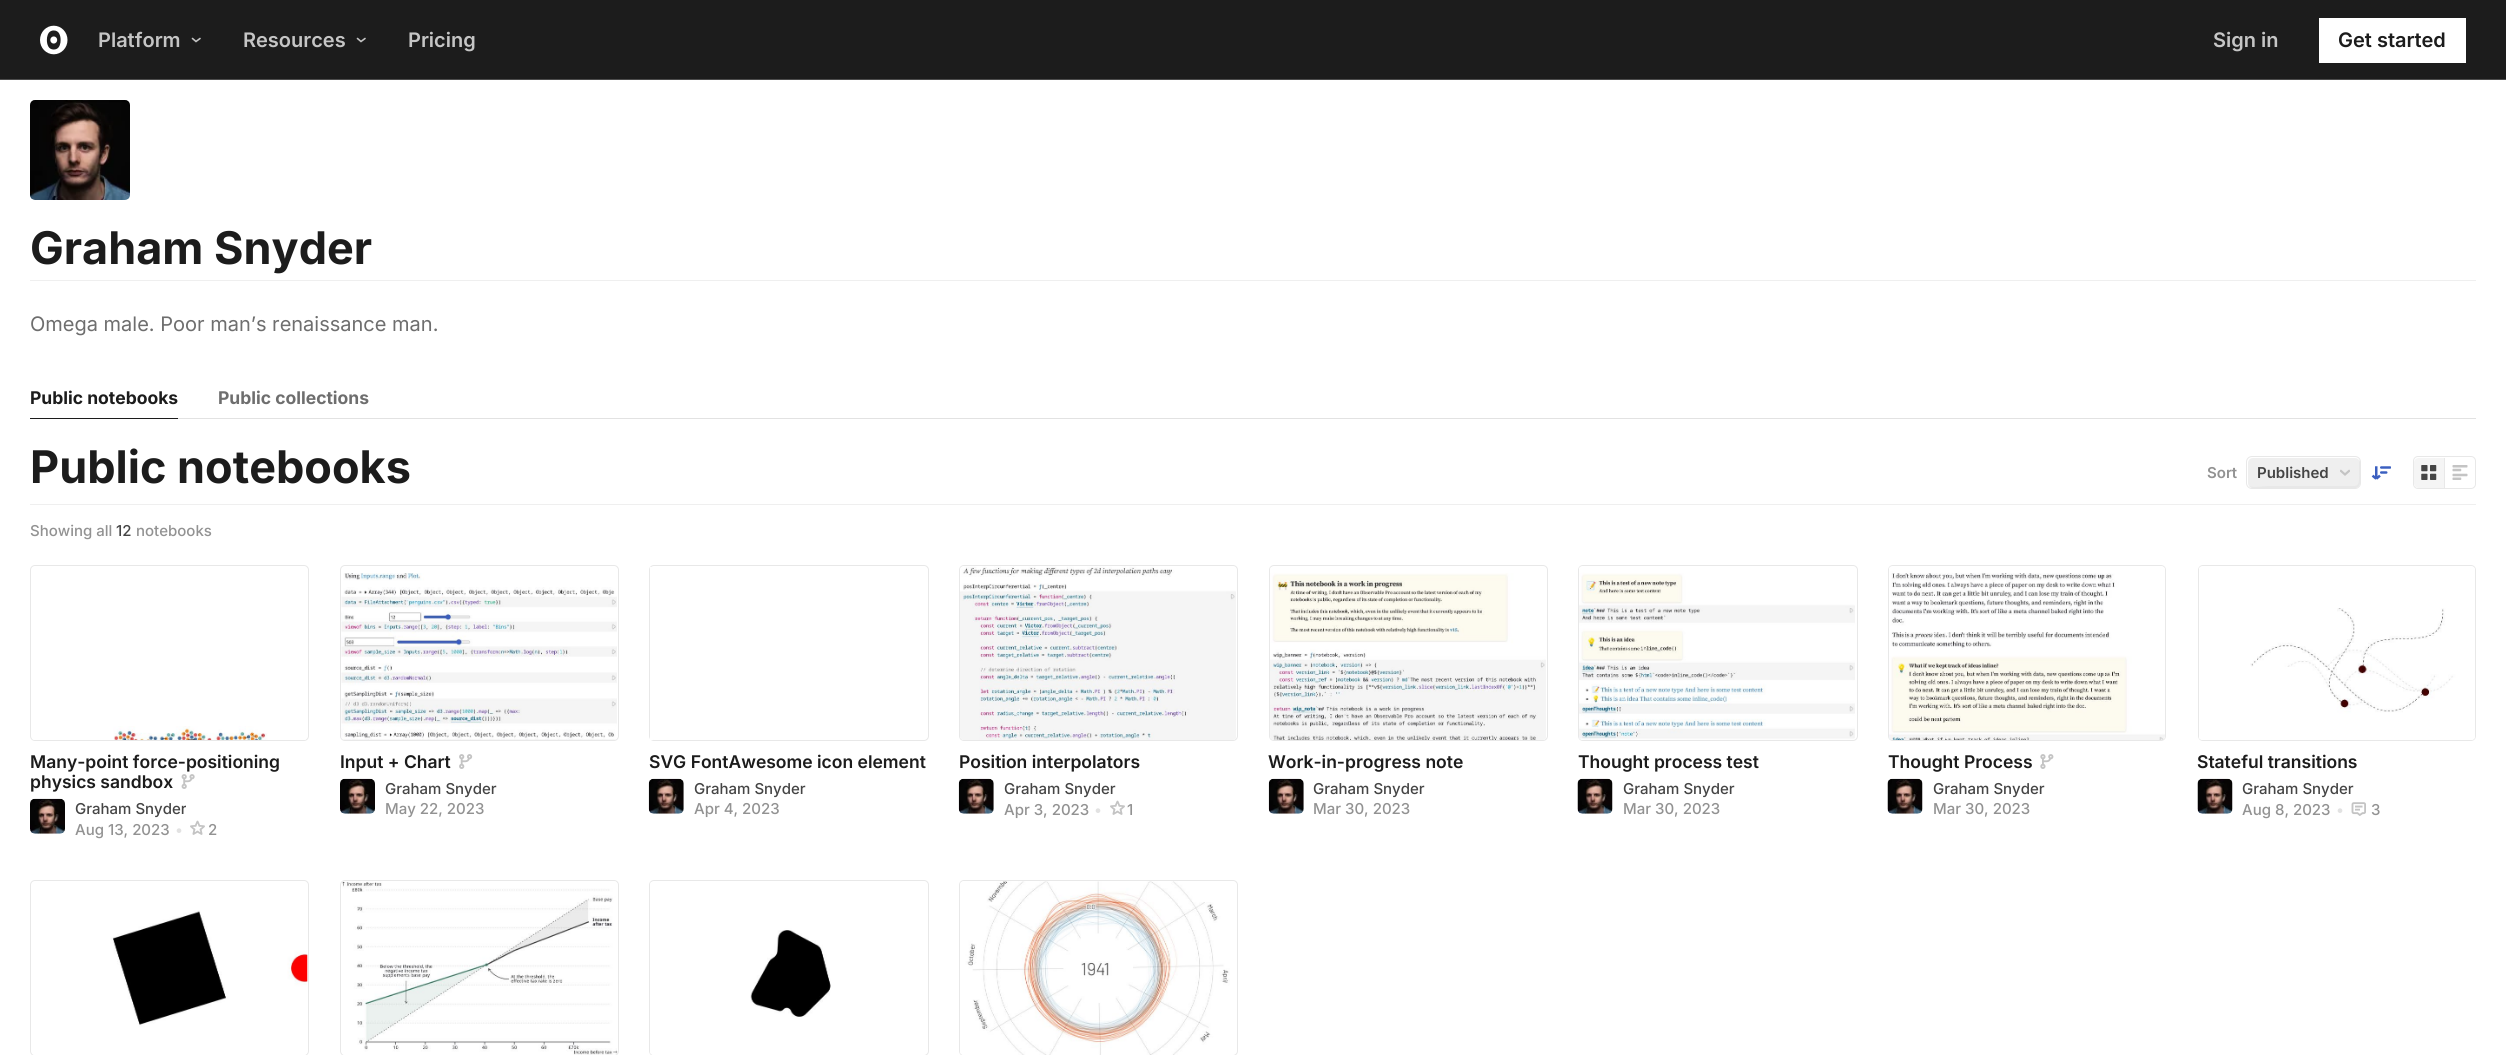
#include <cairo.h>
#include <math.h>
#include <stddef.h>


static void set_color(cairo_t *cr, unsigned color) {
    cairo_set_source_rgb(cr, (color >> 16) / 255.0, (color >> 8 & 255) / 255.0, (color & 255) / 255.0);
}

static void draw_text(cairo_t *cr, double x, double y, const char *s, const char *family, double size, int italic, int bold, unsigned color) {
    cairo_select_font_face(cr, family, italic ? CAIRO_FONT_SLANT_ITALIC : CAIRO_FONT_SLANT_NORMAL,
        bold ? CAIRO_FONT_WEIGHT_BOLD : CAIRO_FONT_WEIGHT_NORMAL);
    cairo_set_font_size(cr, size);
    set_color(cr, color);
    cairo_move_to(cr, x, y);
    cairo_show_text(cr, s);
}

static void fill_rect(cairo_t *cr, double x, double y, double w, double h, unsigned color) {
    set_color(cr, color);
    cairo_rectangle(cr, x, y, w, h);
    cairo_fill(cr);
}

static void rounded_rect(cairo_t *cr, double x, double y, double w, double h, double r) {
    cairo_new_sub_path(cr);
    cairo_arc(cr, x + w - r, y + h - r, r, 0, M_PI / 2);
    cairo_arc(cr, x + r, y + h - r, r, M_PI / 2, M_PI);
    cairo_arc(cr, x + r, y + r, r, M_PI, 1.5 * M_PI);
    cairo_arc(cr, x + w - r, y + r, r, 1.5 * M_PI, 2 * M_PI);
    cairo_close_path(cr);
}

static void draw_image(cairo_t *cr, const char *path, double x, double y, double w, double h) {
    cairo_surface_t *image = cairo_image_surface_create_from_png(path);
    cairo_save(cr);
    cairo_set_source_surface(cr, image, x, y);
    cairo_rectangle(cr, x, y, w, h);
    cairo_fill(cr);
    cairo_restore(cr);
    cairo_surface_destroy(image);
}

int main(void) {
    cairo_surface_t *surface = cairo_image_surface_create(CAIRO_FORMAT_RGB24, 2506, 1055);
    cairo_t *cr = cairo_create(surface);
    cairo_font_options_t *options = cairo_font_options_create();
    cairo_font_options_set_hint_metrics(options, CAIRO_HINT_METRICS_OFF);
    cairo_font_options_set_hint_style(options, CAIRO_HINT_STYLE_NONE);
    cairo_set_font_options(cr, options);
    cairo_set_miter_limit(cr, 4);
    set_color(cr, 0xFFFFFF);
    cairo_paint(cr);
    fill_rect(cr, 0, 0, 2506, 79, 0x1C1C1C);
    fill_rect(cr, 0, 79, 2506, 1, 0x4C4C4C);
    draw_image(cr, "assets/img1.png", 40, 25, 28, 30);
    draw_text(cr, 98, 47, "Platform", "Inter SemiBold", 20, 0, 0, 0xC5C5C5);
    cairo_new_path(cr);
    cairo_move_to(cr, 192.5, 38.5);
    cairo_line_to(cr, 196, 41.5);
    cairo_line_to(cr, 200, 38.5);
    cairo_set_line_width(cr, 1.6);
    cairo_set_line_cap(cr, CAIRO_LINE_CAP_ROUND);
    cairo_stroke(cr);
    draw_text(cr, 243, 47, "Resources", "Inter SemiBold", 20, 0, 0, 0xC5C5C5);
    cairo_new_path(cr);
    cairo_move_to(cr, 357.5, 38.5);
    cairo_line_to(cr, 361, 41.5);
    cairo_line_to(cr, 365, 38.5);
    cairo_stroke(cr);
    draw_text(cr, 408, 47, "Pricing", "Inter SemiBold", 20, 0, 0, 0xC5C5C5);
    draw_text(cr, 2213, 47, "Sign in", "Inter SemiBold", 20, 0, 0, 0xC5C5C5);
    fill_rect(cr, 2319, 18, 147, 45, 0xFFFFFF);
    draw_text(cr, 2338, 47, "Get started", "Inter SemiBold", 20, 0, 0, 0x1C1C1C);
    draw_image(cr, "assets/img2.png", 30, 100, 100, 100);
    fill_rect(cr, 30, 280, 2446, 1, 0xEFEFEF);
    draw_text(cr, 30, 264, "Graham Snyder", "Inter", 45, 0, 1, 0x1C1C1C);
    draw_text(cr, 30, 331, "Omega male. Poor man’s renaissance man.", "Inter", 20, 0, 0, 0x6E6E6E);
    fill_rect(cr, 30, 418, 148, 1, 0x1C1C1C);
    draw_text(cr, 30, 404, "Public notebooks", "Inter", 17.5, 0, 1, 0x1C1C1C);
    draw_text(cr, 218, 404, "Public collections", "Inter", 17.5, 0, 1, 0x6E6E6E);
    fill_rect(cr, 178, 418, 2298, 1, 0xE2E2E2);
    draw_text(cr, 30, 483, "Public notebooks", "Inter", 45, 0, 1, 0x1C1C1C);
    draw_text(cr, 2207, 478, "Sort", "Inter SemiBold", 15, 0, 0, 0x929292);
    rounded_rect(cr, 2246.5, 456.5, 114, 32, 5.5);
    set_color(cr, 0xE8E8E8);
    cairo_set_line_width(cr, 1);
    cairo_set_line_cap(cr, CAIRO_LINE_CAP_BUTT);
    cairo_stroke(cr);
    set_color(cr, 0xEFEFEF);
    rounded_rect(cr, 2248, 458, 112, 30, 5);
    cairo_fill(cr);
    cairo_save(cr);
    cairo_rectangle(cr, 2340, 463, 10, 20);
    cairo_clip(cr);
    cairo_new_path(cr);
    cairo_move_to(cr, 2341, 471);
    cairo_line_to(cr, 2345, 474.5);
    cairo_line_to(cr, 2349, 471);
    set_color(cr, 0xC4C4C4);
    cairo_set_line_width(cr, 2.2);
    cairo_set_line_cap(cr, CAIRO_LINE_CAP_SQUARE);
    cairo_stroke(cr);
    cairo_restore(cr);
    set_color(cr, 0xE8E8E8);
    cairo_new_path(cr);
    cairo_move_to(cr, 2249, 486);
    cairo_curve_to(cr, 2250, 487, 2251, 488, 2253, 488);
    cairo_line_to(cr, 2355, 488);
    cairo_curve_to(cr, 2358, 488, 2360, 486, 2360, 483);
    cairo_line_to(cr, 2360, 463);
    cairo_curve_to(cr, 2360, 462, 2360, 461, 2359, 460);
    cairo_line_to(cr, 2359, 474);
    cairo_curve_to(cr, 2359, 479, 2360, 486, 2354, 486);
    cairo_line_to(cr, 2268, 486);
    cairo_curve_to(cr, 2262, 486, 2255, 488, 2249, 486);
    cairo_close_path(cr);
    cairo_fill(cr);
    draw_text(cr, 2257, 478, "Published", "Inter SemiBold", 15, 0, 0, 0x454545);
    draw_image(cr, "assets/img3.png", 2371, 466, 20, 14);
    rounded_rect(cr, 2413.5, 456.5, 62, 32, 4.5);
    set_color(cr, 0xE8E8E8);
    cairo_stroke(cr);
    set_color(cr, 0xF5F5F5);
    cairo_new_path(cr);
    cairo_move_to(cr, 2419, 458);
    cairo_line_to(cr, 2444, 458);
    cairo_line_to(cr, 2444, 488);
    cairo_line_to(cr, 2419, 488);
    cairo_curve_to(cr, 2416, 488, 2414, 486, 2414, 483);
    cairo_line_to(cr, 2414, 463);
    cairo_curve_to(cr, 2414, 460, 2416, 458, 2419, 458);
    cairo_close_path(cr);
    cairo_fill(cr);
    draw_image(cr, "assets/img4.png", 2421, 465, 16, 15);
    fill_rect(cr, 2444, 458, 1, 30, 0xE8E8E8);
    draw_image(cr, "assets/img5.png", 2452, 465, 16, 15);
    fill_rect(cr, 30, 504, 2446, 1, 0xEFEFEF);
    draw_text(cr, 30, 536, "Showing all", "Inter Medium", 15, 0, 0, 0x929292);
    draw_text(cr, 116, 536, "12", "Inter Medium", 15, 0, 0, 0x454545);
    draw_text(cr, 136, 536, "notebooks", "Inter Medium", 15, 0, 0, 0x929292);
    rounded_rect(cr, 30.5, 565.5, 278, 175, 4.5);
    set_color(cr, 0xE8E8E8);
    cairo_stroke(cr);
    draw_image(cr, "assets/img6.png", 32, 726, 274, 14);
    draw_text(cr, 30, 768, "Many-point force-positioning", "Inter SemiBold", 17.5, 0, 0, 0x1C1C1C);
    draw_text(cr, 30, 788, "physics sandbox", "Inter SemiBold", 17.5, 0, 0, 0x1C1C1C);
    draw_image(cr, "assets/img7.png", 181, 774, 14, 15);
    draw_image(cr, "assets/img8.png", 30, 798, 35, 36);
    cairo_save(cr);
    cairo_rectangle(cr, 75, 799, 111, 19);
    cairo_clip(cr);
    draw_text(cr, 75, 814, "Graham Snyder", "Inter Medium", 15, 0, 0, 0x454545);
    cairo_restore(cr);
    draw_text(cr, 75, 835, "Aug 13, 2023", "Inter Medium", 15, 0, 0, 0x929292);
    draw_text(cr, 175, 835, "•", "Inter Medium", 15, 0, 0, 0xE2E2E2);
    draw_image(cr, "assets/img9.png", 190, 820, 15, 15);
    draw_text(cr, 208, 835, "2", "Inter Medium", 15, 0, 0, 0x929292);
    rounded_rect(cr, 340.5, 565.5, 278, 175, 4.5);
    set_color(cr, 0xE8E8E8);
    cairo_stroke(cr);
    draw_image(cr, "assets/img10.png", 341, 573, 276, 167);
    draw_text(cr, 340, 768, "Input + Chart", "Inter SemiBold", 17.5, 0, 0, 0x1C1C1C);
    draw_image(cr, "assets/img11.png", 459, 754, 14, 15);
    draw_image(cr, "assets/img12.png", 340, 778, 35, 36);
    draw_text(cr, 385, 794, "Graham Snyder", "Inter Medium", 15, 0, 0, 0x454545);
    draw_text(cr, 385, 814, "May 22, 2023", "Inter Medium", 15, 0, 0, 0x929292);
    rounded_rect(cr, 649.5, 565.5, 279, 175, 4.5);
    set_color(cr, 0xE8E8E8);
    cairo_stroke(cr);
    fill_rect(cr, 650, 567, 3, 173, 0xFFFFFF);
    draw_text(cr, 649, 768, "SVG FontAwesome icon element", "Inter SemiBold", 17.5, 0, 0, 0x1C1C1C);
    draw_image(cr, "assets/img13.png", 648, 778, 36, 36);
    draw_text(cr, 694, 794, "Graham Snyder", "Inter Medium", 15, 0, 0, 0x454545);
    draw_text(cr, 694, 814, "Apr 4, 2023", "Inter Medium", 15, 0, 0, 0x929292);
    rounded_rect(cr, 959.5, 565.5, 278, 175, 4.5);
    set_color(cr, 0xE8E8E8);
    cairo_stroke(cr);
    draw_image(cr, "assets/img14.png", 960, 566, 276, 174);
    draw_text(cr, 959, 768, "Position interpolators", "Inter SemiBold", 17.5, 0, 0, 0x1C1C1C);
    draw_image(cr, "assets/img15.png", 958, 778, 36, 36);
    draw_text(cr, 1004, 794, "Graham Snyder", "Inter Medium", 15, 0, 0, 0x454545);
    draw_text(cr, 1004, 815, "Apr 3, 2023", "Inter Medium", 15, 0, 0, 0x929292);
    draw_text(cr, 1094, 815, "•", "Inter Medium", 15, 0, 0, 0xE2E2E2);
    draw_image(cr, "assets/img9.png", 1110, 800, 15, 15);
    draw_text(cr, 1127, 815, "1", "Inter Medium", 15, 0, 0, 0x929292);
    rounded_rect(cr, 1269.5, 565.5, 278, 175, 4.5);
    set_color(cr, 0xE8E8E8);
    cairo_stroke(cr);
    draw_image(cr, "assets/img16.png", 1270, 567, 276, 173);
    draw_text(cr, 1268, 768, "Work-in-progress note", "Inter SemiBold", 17.5, 0, 0, 0x1C1C1C);
    draw_image(cr, "assets/img17.png", 1268, 778, 36, 36);
    draw_text(cr, 1313, 794, "Graham Snyder", "Inter Medium", 15, 0, 0, 0x454545);
    draw_text(cr, 1313, 814, "Mar 30, 2023", "Inter Medium", 15, 0, 0, 0x929292);
    rounded_rect(cr, 1578.5, 565.5, 279, 175, 4.5);
    set_color(cr, 0xE8E8E8);
    cairo_stroke(cr);
    draw_image(cr, "assets/img18.png", 1579, 566, 276, 174);
    draw_text(cr, 1578, 768, "Thought process test", "Inter SemiBold", 17.5, 0, 0, 0x1C1C1C);
    draw_image(cr, "assets/img19.png", 1577, 778, 36, 36);
    draw_text(cr, 1623, 794, "Graham Snyder", "Inter Medium", 15, 0, 0, 0x454545);
    draw_text(cr, 1623, 814, "Mar 30, 2023", "Inter Medium", 15, 0, 0, 0x929292);
    rounded_rect(cr, 1888.5, 565.5, 277, 175, 4.5);
    set_color(cr, 0xE8E8E8);
    cairo_stroke(cr);
    draw_image(cr, "assets/img20.png", 1889, 566, 276, 174);
    draw_text(cr, 1888, 768, "Thought Process", "Inter SemiBold", 17.5, 0, 0, 0x1C1C1C);
    draw_image(cr, "assets/img21.png", 2040, 754, 14, 15);
    draw_image(cr, "assets/img19.png", 1887, 778, 36, 36);
    draw_text(cr, 1933, 794, "Graham Snyder", "Inter Medium", 15, 0, 0, 0x454545);
    draw_text(cr, 1933, 814, "Mar 30, 2023", "Inter Medium", 15, 0, 0, 0x929292);
    rounded_rect(cr, 2198.5, 565.5, 277, 175, 4.5);
    set_color(cr, 0xE8E8E8);
    cairo_stroke(cr);
    draw_image(cr, "assets/img22.png", 2199, 566, 276, 174);
    draw_text(cr, 2197, 768, "Stateful transitions", "Inter SemiBold", 17.5, 0, 0, 0x1C1C1C);
    draw_image(cr, "assets/img19.png", 2197, 778, 36, 36);
    draw_text(cr, 2242, 794, "Graham Snyder", "Inter Medium", 15, 0, 0, 0x454545);
    draw_text(cr, 2242, 815, "Aug 8, 2023", "Inter Medium", 15, 0, 0, 0x929292);
    draw_text(cr, 2336, 815, "•", "Inter Medium", 15, 0, 0, 0xE2E2E2);
    draw_image(cr, "assets/img23.png", 2351, 802, 15, 14);
    draw_text(cr, 2371, 815, "3", "Inter Medium", 15, 0, 0, 0x929292);
    rounded_rect(cr, 30.5, 880.5, 278, 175, 4.5);
    set_color(cr, 0xE8E8E8);
    cairo_stroke(cr);
    draw_image(cr, "assets/img24.png", 32, 910, 276, 145);
    rounded_rect(cr, 340.5, 880.5, 278, 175, 4.5);
    cairo_stroke(cr);
    draw_image(cr, "assets/img25.png", 342, 881, 276, 174);
    rounded_rect(cr, 649.5, 880.5, 279, 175, 4.5);
    cairo_stroke(cr);
    draw_image(cr, "assets/img26.png", 650, 882, 181, 173);
    rounded_rect(cr, 959.5, 880.5, 278, 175, 4.5);
    cairo_stroke(cr);
    draw_image(cr, "assets/img27.png", 960, 881, 270, 174);
    cairo_surface_write_to_png(surface, "output.png");
    cairo_font_options_destroy(options);
    cairo_destroy(cr);
    cairo_surface_destroy(surface);
    return 0;
}
